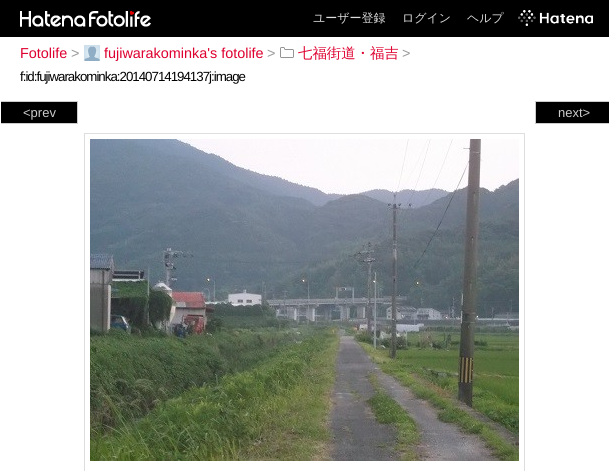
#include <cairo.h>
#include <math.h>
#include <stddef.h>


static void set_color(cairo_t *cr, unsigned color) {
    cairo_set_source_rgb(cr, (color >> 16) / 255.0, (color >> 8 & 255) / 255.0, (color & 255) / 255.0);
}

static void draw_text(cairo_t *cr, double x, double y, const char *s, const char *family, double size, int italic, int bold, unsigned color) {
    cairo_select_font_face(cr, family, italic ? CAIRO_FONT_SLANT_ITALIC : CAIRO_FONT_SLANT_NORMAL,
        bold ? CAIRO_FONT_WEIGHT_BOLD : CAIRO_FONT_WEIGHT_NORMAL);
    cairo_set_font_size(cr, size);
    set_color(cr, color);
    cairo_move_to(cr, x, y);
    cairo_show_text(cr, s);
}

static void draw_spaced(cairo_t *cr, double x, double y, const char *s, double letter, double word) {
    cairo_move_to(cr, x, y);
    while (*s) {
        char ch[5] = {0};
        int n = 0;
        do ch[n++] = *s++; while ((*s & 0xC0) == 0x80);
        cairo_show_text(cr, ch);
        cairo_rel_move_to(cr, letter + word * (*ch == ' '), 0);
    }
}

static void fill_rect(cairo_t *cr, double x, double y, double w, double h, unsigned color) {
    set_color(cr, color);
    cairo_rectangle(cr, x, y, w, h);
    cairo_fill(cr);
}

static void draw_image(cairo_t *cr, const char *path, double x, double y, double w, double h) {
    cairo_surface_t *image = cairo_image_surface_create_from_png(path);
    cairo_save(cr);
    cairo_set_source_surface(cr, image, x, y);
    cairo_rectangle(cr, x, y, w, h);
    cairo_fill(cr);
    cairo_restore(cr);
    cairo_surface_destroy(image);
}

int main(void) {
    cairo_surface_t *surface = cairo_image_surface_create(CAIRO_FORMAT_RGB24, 609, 471);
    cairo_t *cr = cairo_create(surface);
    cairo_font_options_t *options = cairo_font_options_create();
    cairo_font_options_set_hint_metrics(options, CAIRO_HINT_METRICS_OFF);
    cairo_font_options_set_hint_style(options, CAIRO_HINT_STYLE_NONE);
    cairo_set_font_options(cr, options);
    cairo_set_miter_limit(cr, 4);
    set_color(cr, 0xFFFFFF);
    cairo_paint(cr);
    fill_rect(cr, 0, 0, 609, 37, 0x000000);
    draw_image(cr, "assets/img1.png", 20, 11, 66, 16);
    draw_image(cr, "assets/img2.png", 89, 11, 62, 16);
    draw_text(cr, 313, 22, "ユーザー登録", "WenQuanYi Zen Hei Medium", 12, 0, 0, 0xDDDDDD);
    draw_text(cr, 402, 22, "ログイン", "WenQuanYi Zen Hei Medium", 12, 0, 0, 0xDDDDDD);
    draw_text(cr, 467, 22, "ヘルプ", "WenQuanYi Zen Hei Medium", 12, 0, 0, 0xDDDDDD);
    draw_image(cr, "assets/img3.png", 518, 10, 75, 16);
    draw_text(cr, 20, 58, "Fotolife", "Liberation Sans", 14.4, 0, 0, 0xDE002F);
    draw_text(cr, 71, 58, ">", "Liberation Sans", 14.4, 0, 0, 0x999999);
    draw_image(cr, "assets/img4.png", 84, 45, 16, 16);
    draw_text(cr, 104, 58, "fujiwarakominka's fotolife", "Liberation Sans", 14.4, 0, 0, 0xDE002F);
    draw_text(cr, 267, 58, ">", "Liberation Sans", 14.4, 0, 0, 0x999999);
    draw_image(cr, "assets/img5.png", 280, 47, 14, 11);
    draw_text(cr, 298, 58, "七福街道・福吉", "WenQuanYi Zen Hei Medium", 14.4, 0, 0, 0xDE002F);
    draw_text(cr, 402, 58, ">", "Liberation Sans", 14.4, 0, 0, 0x999999);
    cairo_set_font_size(cr, 13.3);
    set_color(cr, 0x000000);
    draw_spaced(cr, 20, 81, "f:id:fujiwarakominka:20140714194137j:image", -1, 0);
    fill_rect(cr, 1, 102, 76, 21, 0x000000);
    fill_rect(cr, 1, 101, 77, 1, 0xCCCCCC);
    fill_rect(cr, 77, 101, 1, 23, 0xCCCCCC);
    fill_rect(cr, 1, 123, 77, 1, 0xCCCCCC);
    draw_text(cr, 23, 117, "<prev", "Liberation Sans", 13, 0, 0, 0xCCCCCC);
    fill_rect(cr, 536, 102, 73, 21, 0x000000);
    fill_rect(cr, 535, 101, 74, 1, 0xCCCCCC);
    fill_rect(cr, 535, 123, 74, 1, 0xCCCCCC);
    fill_rect(cr, 535, 101, 1, 23, 0xCCCCCC);
    draw_text(cr, 558, 117, "next>", "Liberation Sans", 13, 0, 0, 0xCCCCCC);
    cairo_rectangle(cr, 84.5, 133.5, 440, 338);
    set_color(cr, 0xDEDEDE);
    cairo_set_line_width(cr, 1);
    cairo_stroke(cr);
    draw_image(cr, "assets/img6.png", 90, 139, 429, 322);
    cairo_surface_write_to_png(surface, "output.png");
    cairo_font_options_destroy(options);
    cairo_destroy(cr);
    cairo_surface_destroy(surface);
    return 0;
}
